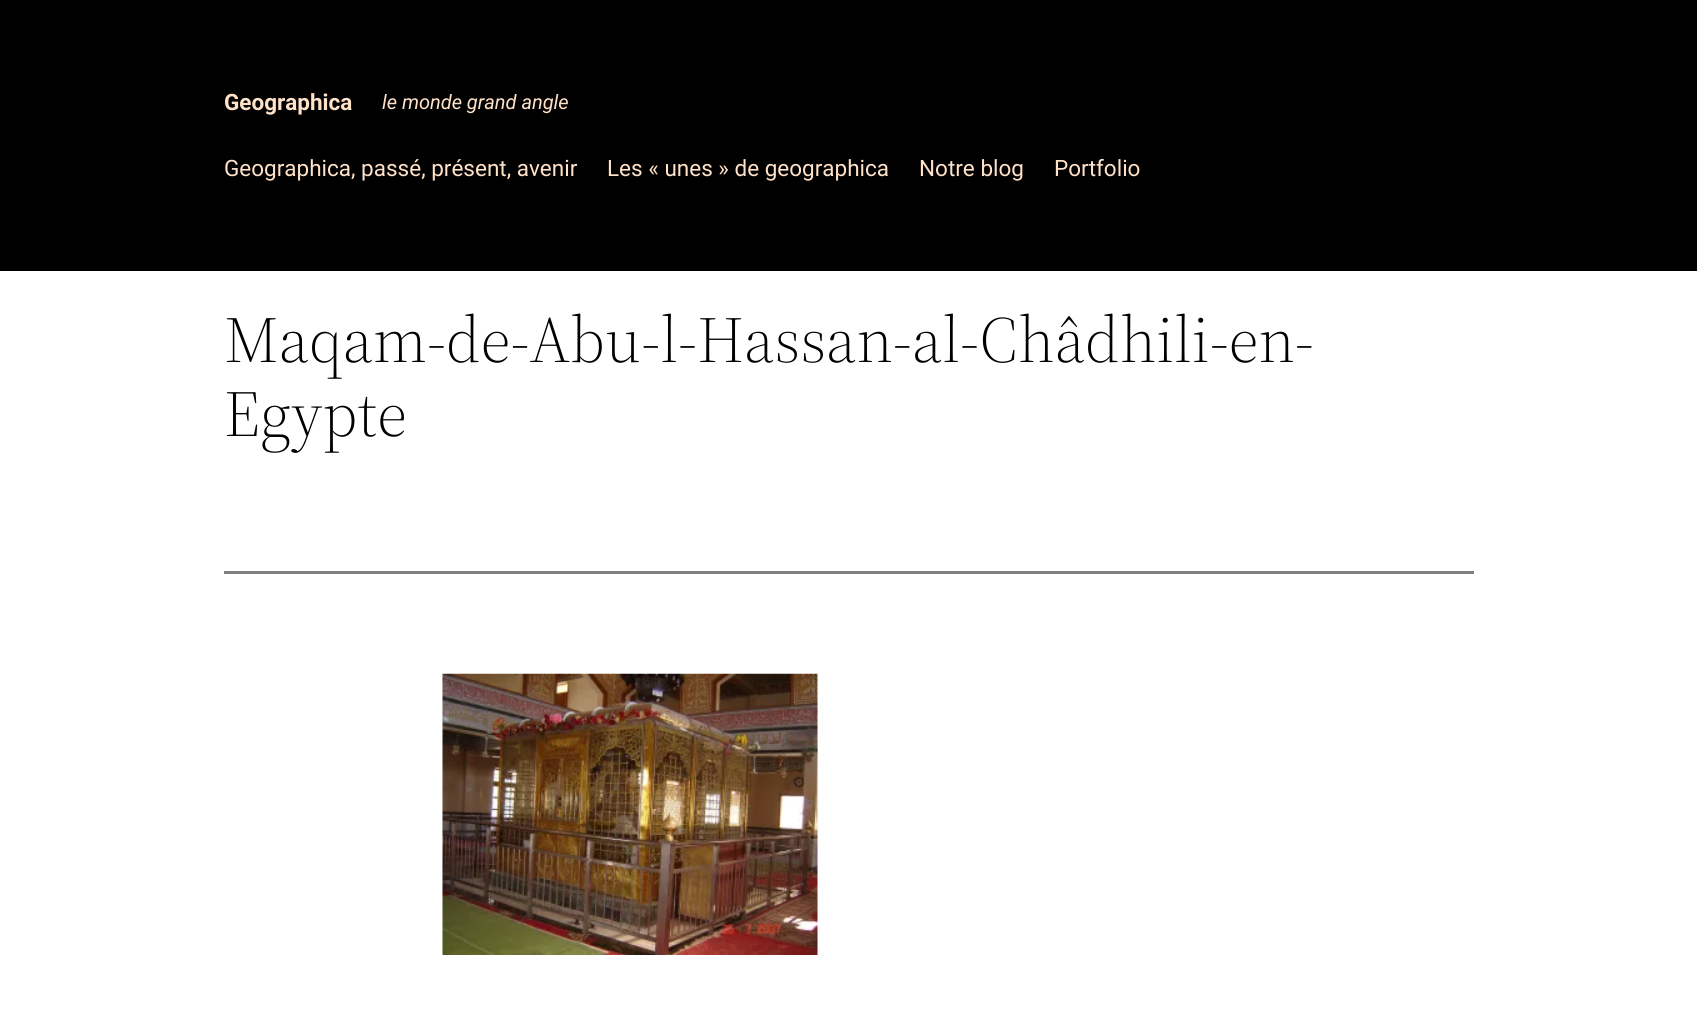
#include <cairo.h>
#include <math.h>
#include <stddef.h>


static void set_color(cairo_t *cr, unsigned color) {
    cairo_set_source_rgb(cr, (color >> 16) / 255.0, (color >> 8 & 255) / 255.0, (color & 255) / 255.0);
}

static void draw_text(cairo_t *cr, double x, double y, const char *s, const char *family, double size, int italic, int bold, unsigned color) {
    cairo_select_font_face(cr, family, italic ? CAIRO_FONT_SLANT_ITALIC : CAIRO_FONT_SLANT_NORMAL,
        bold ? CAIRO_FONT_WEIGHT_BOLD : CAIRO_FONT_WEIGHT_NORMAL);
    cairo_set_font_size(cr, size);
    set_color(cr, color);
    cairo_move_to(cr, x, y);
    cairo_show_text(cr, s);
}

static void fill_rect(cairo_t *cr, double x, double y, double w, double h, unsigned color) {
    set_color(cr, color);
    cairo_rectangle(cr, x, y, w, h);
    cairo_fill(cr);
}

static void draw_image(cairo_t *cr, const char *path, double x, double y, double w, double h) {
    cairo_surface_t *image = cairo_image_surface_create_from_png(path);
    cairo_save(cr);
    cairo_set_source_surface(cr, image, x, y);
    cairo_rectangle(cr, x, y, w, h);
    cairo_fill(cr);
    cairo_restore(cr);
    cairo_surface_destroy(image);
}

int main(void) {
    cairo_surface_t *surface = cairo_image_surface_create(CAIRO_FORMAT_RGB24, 1697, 1028);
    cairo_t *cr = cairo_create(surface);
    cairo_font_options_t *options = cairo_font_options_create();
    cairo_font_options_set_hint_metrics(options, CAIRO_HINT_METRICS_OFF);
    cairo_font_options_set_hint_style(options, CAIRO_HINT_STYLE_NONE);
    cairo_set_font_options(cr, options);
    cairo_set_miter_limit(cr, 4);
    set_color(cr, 0xFFFFFF);
    cairo_paint(cr);
    fill_rect(cr, 0, 0, 1697, 271, 0x000000);
    draw_text(cr, 224, 110, "Geographica", "Roboto", 22.5, 0, 1, 0xFFE2C7);
    draw_text(cr, 382, 109, "le monde grand angle", "Roboto", 20, 1, 0, 0xFFE2C7);
    draw_text(cr, 224, 176, "Geographica, passé, présent, avenir", "Roboto", 22.5, 0, 0, 0xFFE2C7);
    draw_text(cr, 607, 176, "Les « unes » de geographica", "Roboto", 22.5, 0, 0, 0xFFE2C7);
    draw_text(cr, 919, 176, "Notre blog", "Roboto", 22.5, 0, 0, 0xFFE2C7);
    draw_text(cr, 1054, 176, "Portfolio", "Roboto", 22.5, 0, 0, 0xFFE2C7);
    draw_text(cr, 224, 362, "Maqam-de-Abu-l-Hassan-al-Châdhili-en-", "Source Serif 4 Light", 65, 0, 0, 0x000000);
    draw_text(cr, 224, 436, "Egypte", "Source Serif 4 Light", 65, 0, 0, 0x000000);
    fill_rect(cr, 224, 571, 1250, 3, 0x808080);
    draw_image(cr, "assets/img1.png", 442, 673, 376, 282);
    cairo_surface_write_to_png(surface, "output.png");
    cairo_font_options_destroy(options);
    cairo_destroy(cr);
    cairo_surface_destroy(surface);
    return 0;
}
